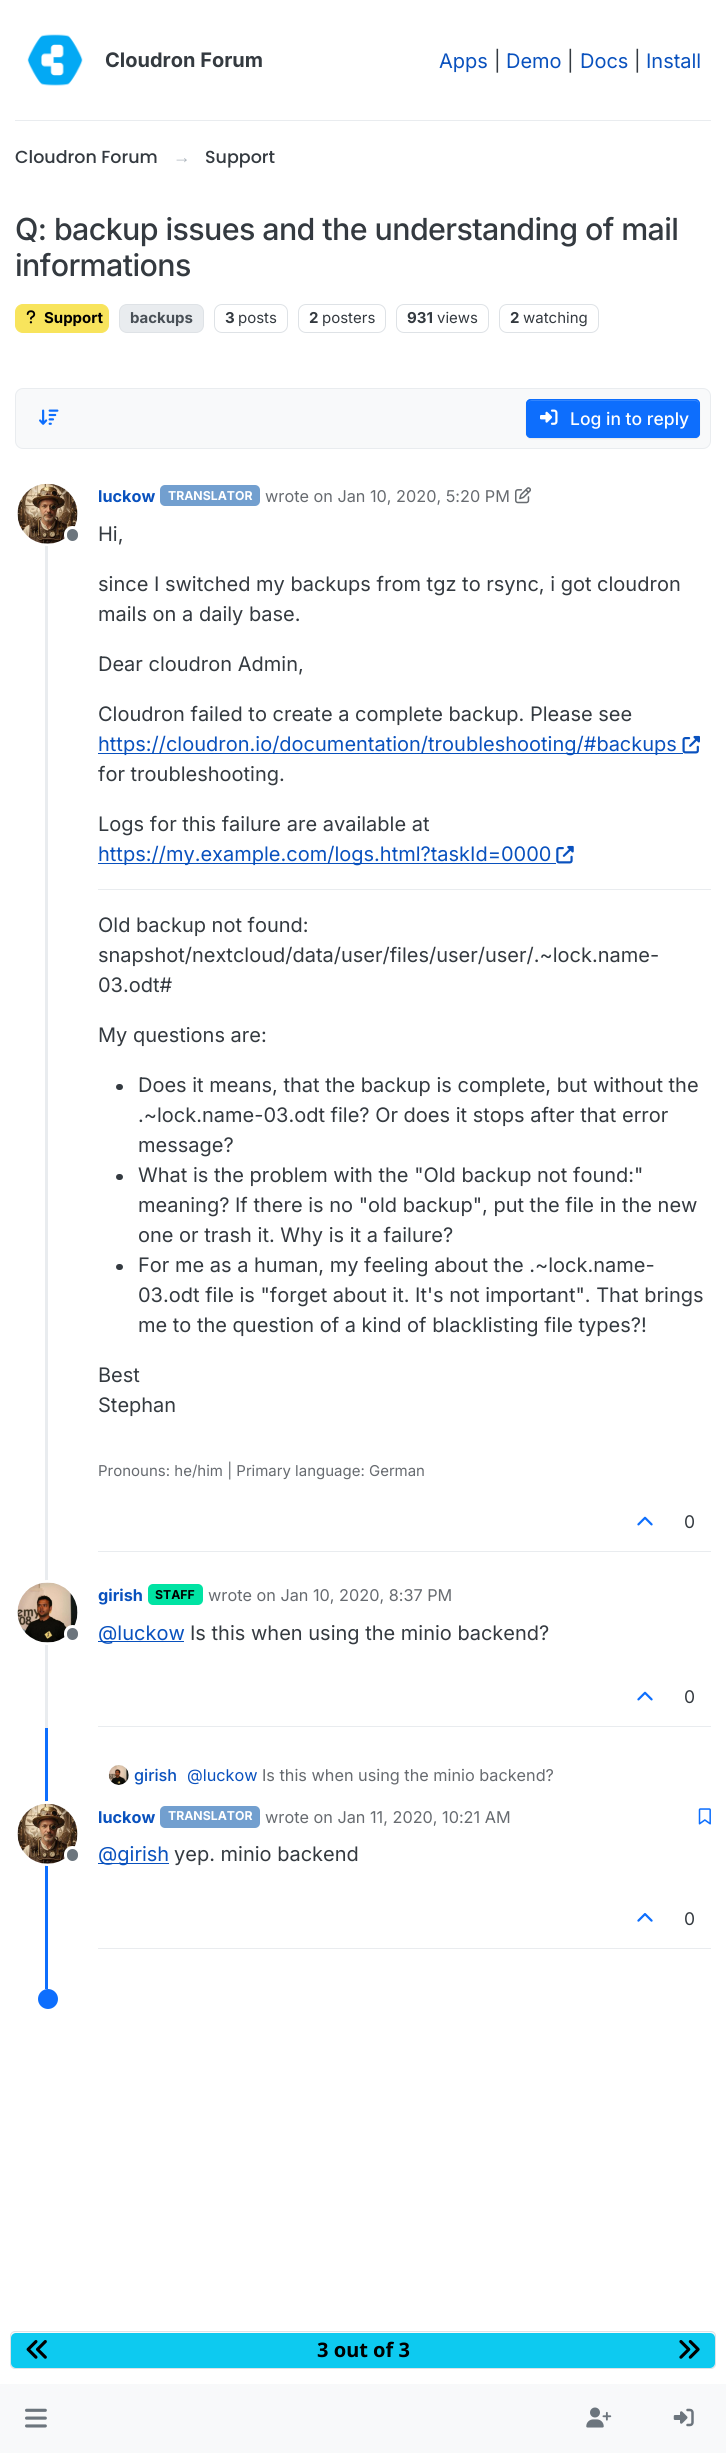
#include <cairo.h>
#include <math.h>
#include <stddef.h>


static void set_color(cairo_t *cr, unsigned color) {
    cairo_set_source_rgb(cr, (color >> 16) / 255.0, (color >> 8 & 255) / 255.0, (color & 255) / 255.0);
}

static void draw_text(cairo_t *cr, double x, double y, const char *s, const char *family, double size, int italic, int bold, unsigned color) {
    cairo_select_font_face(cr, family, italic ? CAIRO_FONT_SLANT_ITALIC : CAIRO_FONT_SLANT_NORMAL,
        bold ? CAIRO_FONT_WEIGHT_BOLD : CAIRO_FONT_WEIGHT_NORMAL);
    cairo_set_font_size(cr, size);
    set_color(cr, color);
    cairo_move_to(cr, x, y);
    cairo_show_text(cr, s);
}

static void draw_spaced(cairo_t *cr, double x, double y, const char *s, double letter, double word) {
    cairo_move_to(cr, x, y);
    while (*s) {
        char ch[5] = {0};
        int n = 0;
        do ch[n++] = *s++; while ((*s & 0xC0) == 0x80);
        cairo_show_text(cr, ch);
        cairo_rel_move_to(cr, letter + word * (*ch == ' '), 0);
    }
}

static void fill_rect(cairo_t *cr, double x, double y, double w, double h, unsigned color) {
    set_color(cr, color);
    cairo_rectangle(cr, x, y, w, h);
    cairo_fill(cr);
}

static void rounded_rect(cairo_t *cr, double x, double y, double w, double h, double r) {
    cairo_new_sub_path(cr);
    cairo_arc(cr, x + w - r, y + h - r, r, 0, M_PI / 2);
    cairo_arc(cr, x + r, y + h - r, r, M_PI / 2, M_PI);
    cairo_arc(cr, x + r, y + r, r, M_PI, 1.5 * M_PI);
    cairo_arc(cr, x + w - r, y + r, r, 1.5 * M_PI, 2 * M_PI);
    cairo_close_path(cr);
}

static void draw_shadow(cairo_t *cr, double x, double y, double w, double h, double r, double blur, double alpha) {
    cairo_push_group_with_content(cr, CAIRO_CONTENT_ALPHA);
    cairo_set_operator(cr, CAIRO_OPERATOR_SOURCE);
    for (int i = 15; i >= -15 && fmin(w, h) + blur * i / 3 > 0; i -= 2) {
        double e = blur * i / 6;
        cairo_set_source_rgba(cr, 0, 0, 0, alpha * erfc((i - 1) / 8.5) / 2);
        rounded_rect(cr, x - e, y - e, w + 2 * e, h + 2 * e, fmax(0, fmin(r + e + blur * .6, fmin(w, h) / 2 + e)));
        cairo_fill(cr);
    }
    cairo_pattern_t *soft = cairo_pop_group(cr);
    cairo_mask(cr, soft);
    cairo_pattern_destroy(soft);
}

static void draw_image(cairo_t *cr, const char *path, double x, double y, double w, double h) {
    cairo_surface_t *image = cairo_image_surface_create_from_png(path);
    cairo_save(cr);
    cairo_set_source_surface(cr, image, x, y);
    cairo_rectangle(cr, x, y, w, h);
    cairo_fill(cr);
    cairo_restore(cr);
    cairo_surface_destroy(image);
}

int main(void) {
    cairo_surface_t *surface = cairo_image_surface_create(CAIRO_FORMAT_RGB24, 726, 2453);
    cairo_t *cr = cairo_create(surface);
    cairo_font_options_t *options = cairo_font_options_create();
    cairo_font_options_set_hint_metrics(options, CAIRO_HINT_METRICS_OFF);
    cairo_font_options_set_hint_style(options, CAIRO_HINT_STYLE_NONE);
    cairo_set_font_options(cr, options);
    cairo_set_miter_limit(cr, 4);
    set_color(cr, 0xFFFFFF);
    cairo_paint(cr);
    fill_rect(cr, 15, 120, 696, 1, 0xE9ECEF);
    draw_image(cr, "assets/img1.png", 27, 34, 56, 52);
    draw_text(cr, 105, 67, "Cloudron Forum", "Inter", 20, 0, 1, 0x343A40);
    draw_text(cr, 439, 68, "Apps", "Inter", 20, 0, 0, 0x0951BE);
    draw_text(cr, 494, 68, "|", "Inter", 20, 0, 0, 0x343A40);
    draw_text(cr, 506, 68, "Demo", "Inter", 20, 0, 0, 0x0951BE);
    draw_text(cr, 567, 68, "|", "Inter", 20, 0, 0, 0x343A40);
    draw_text(cr, 580, 68, "Docs", "Inter", 20, 0, 0, 0x0951BE);
    draw_text(cr, 634, 68, "|", "Inter", 20, 0, 0, 0x343A40);
    draw_text(cr, 646, 68, "Install", "Inter", 20, 0, 0, 0x0951BE);
    draw_text(cr, 15, 163, "Cloudron Forum", "Poppins Medium", 17.5, 0, 0, 0x343A40);
    draw_text(cr, 173, 163, "→", "Liberation Sans", 17.5, 0, 0, 0xADB5BD);
    draw_text(cr, 205, 163, "Support", "Poppins Medium", 17.5, 0, 0, 0x343A40);
    cairo_select_font_face(cr, "Inter Medium", CAIRO_FONT_SLANT_NORMAL, CAIRO_FONT_WEIGHT_NORMAL);
    cairo_set_font_size(cr, 30.4);
    draw_spaced(cr, 15, 240, "Q: backup issues and the understanding of mail", -0.6, 0);
    draw_spaced(cr, 15, 276, "informations", -0.6, 0);
    set_color(cr, 0xF8E45C);
    rounded_rect(cr, 15.5, 304.5, 93, 28, 7.5);
    cairo_fill_preserve(cr);
    cairo_set_line_width(cr, 1);
    cairo_stroke(cr);
    draw_image(cr, "assets/img2.png", 26, 310, 10, 14);
    draw_text(cr, 44, 323, "Support", "Inter", 15, 0, 1, 0x000000);
    set_color(cr, 0xE9ECEF);
    rounded_rect(cr, 119.5, 304.5, 84, 28, 7.5);
    cairo_fill_preserve(cr);
    set_color(cr, 0xDEE2E6);
    cairo_stroke(cr);
    draw_text(cr, 130, 323, "backups", "Inter", 15, 0, 1, 0x495057);
    rounded_rect(cr, 214.5, 304.5, 73, 28, 7.5);
    set_color(cr, 0xDEE2E6);
    cairo_stroke(cr);
    draw_text(cr, 225, 323, "3", "Inter", 15, 0, 1, 0x343A40);
    draw_text(cr, 238, 323, "posts", "Inter", 15, 0, 0, 0x343A40);
    rounded_rect(cr, 298.5, 304.5, 87, 28, 7.5);
    set_color(cr, 0xDEE2E6);
    cairo_stroke(cr);
    draw_text(cr, 309, 323, "2", "Inter", 15, 0, 1, 0x343A40);
    draw_text(cr, 322, 323, "posters", "Inter", 15, 0, 0, 0x343A40);
    rounded_rect(cr, 396.5, 304.5, 92, 28, 7.5);
    set_color(cr, 0xDEE2E6);
    cairo_stroke(cr);
    draw_text(cr, 407, 323, "931", "Inter", 15, 0, 1, 0x343A40);
    draw_text(cr, 437, 323, "views", "Inter", 15, 0, 0, 0x343A40);
    rounded_rect(cr, 499.5, 304.5, 99, 28, 7.5);
    set_color(cr, 0xDEE2E6);
    cairo_stroke(cr);
    draw_text(cr, 510, 323, "2", "Inter", 15, 0, 1, 0x343A40);
    draw_text(cr, 523, 323, "watching", "Inter", 15, 0, 0, 0x343A40);
    set_color(cr, 0xF8F9FA);
    rounded_rect(cr, 15.5, 388.5, 695, 60, 7.5);
    cairo_fill_preserve(cr);
    set_color(cr, 0xE9ECEF);
    cairo_stroke(cr);
    draw_image(cr, "assets/img3.png", 39, 409, 20, 16);
    set_color(cr, 0x000000);
    draw_shadow(cr, 526, 400, 174, 39, 5, 0.5, 0.07);
    set_color(cr, 0x0D6EFD);
    rounded_rect(cr, 526, 399, 174, 39, 5);
    cairo_fill(cr);
    set_color(cr, 0x3184FD);
    cairo_new_path(cr);
    cairo_move_to(cr, 531, 401);
    cairo_line_to(cr, 695, 401);
    cairo_curve_to(cr, 697, 401, 699, 403, 699, 405);
    cairo_line_to(cr, 699, 404);
    cairo_curve_to(cr, 699, 402, 697, 400, 695, 400);
    cairo_line_to(cr, 532, 400);
    cairo_curve_to(cr, 530, 400, 528, 402, 528, 404);
    cairo_line_to(cr, 528, 405);
    cairo_curve_to(cr, 528, 403, 529, 401, 531, 401);
    cairo_close_path(cr);
    cairo_fill(cr);
    rounded_rect(cr, 526.5, 399.5, 173, 38, 4.5);
    set_color(cr, 0x0D6EFD);
    cairo_stroke(cr);
    draw_image(cr, "assets/img4.png", 540, 409, 18, 16);
    draw_text(cr, 570, 425, "Log in to reply", "Inter Medium", 17.5, 0, 0, 0xFFFFFF);
    fill_rect(cr, 45, 545, 3, 1183, 0xE9ECEF);
    cairo_new_path(cr);
    cairo_arc(cr, 47.5, 513.5, 31, 0, 2 * M_PI);
    set_color(cr, 0xFFFFFF);
    cairo_set_line_width(cr, 3);
    cairo_stroke(cr);
    draw_image(cr, "assets/img5.png", 17, 483, 61, 61);
    set_color(cr, 0x6C757D);
    rounded_rect(cr, 65.5, 527.5, 14, 15, 7);
    cairo_fill_preserve(cr);
    set_color(cr, 0xFFFFFF);
    cairo_stroke(cr);
    draw_text(cr, 98, 502, "luckow", "Inter", 16.25, 0, 1, 0x0951BE);
    set_color(cr, 0x729FCF);
    rounded_rect(cr, 160, 485, 100, 21, 5);
    cairo_fill(cr);
    draw_text(cr, 168, 500, "TRANSLATOR", "Inter", 12.25, 0, 1, 0xFFFFFF);
    draw_text(cr, 265, 502, "wrote on Jan 10, 2020, 5:20 PM", "Inter", 16.25, 0, 0, 0x676B70);
    draw_image(cr, "assets/img6.png", 515, 487, 16, 17);
    draw_text(cr, 98, 541, "Hi,", "Inter", 20, 0, 0, 0x343A40);
    draw_text(cr, 98, 591, "since I switched my backups from tgz to rsync, i got cloudron", "Inter", 20, 0, 0, 0x343A40);
    draw_text(cr, 98, 621, "mails on a daily base.", "Inter", 20, 0, 0, 0x343A40);
    draw_text(cr, 98, 671, "Dear cloudron Admin,", "Inter", 20, 0, 0, 0x343A40);
    draw_text(cr, 98, 721, "Cloudron failed to create a complete backup. Please see", "Inter", 20, 0, 0, 0x343A40);
    fill_rect(cr, 98, 753, 585, 1, 0x0951BE);
    draw_text(cr, 98, 751, "https://cloudron.io/documentation/troubleshooting/#backups", "Inter", 20, 0, 0, 0x0951BE);
    draw_image(cr, "assets/img7.png", 682, 735, 18, 19);
    draw_text(cr, 98, 781, "for troubleshooting.", "Inter", 20, 0, 0, 0x343A40);
    draw_text(cr, 98, 831, "Logs for this failure are available at", "Inter", 20, 0, 0, 0x343A40);
    fill_rect(cr, 98, 863, 458, 1, 0x0951BE);
    draw_text(cr, 98, 861, "https://my.example.com/logs.html?taskId=0000", "Inter", 20, 0, 0, 0x0951BE);
    draw_image(cr, "assets/img8.png", 556, 845, 18, 19);
    fill_rect(cr, 98, 889, 613, 1, 0xE9ECEF);
    draw_text(cr, 98, 932, "Old backup not found:", "Inter", 20, 0, 0, 0x343A40);
    draw_text(cr, 98, 962, "snapshot/nextcloud/data/user/files/user/user/.~lock.name-", "Inter", 20, 0, 0, 0x343A40);
    draw_text(cr, 98, 992, "03.odt#", "Inter", 20, 0, 0, 0x343A40);
    draw_text(cr, 98, 1042, "My questions are:", "Inter", 20, 0, 0, 0x343A40);
    rounded_rect(cr, 116, 1084, 7, 6, 3);
    cairo_fill(cr);
    draw_text(cr, 138, 1092, "Does it means, that the backup is complete, but without the", "Inter", 20, 0, 0, 0x343A40);
    draw_text(cr, 138, 1122, ".~lock.name-03.odt file? Or does it stops after that error", "Inter", 20, 0, 0, 0x343A40);
    draw_text(cr, 138, 1152, "message?", "Inter", 20, 0, 0, 0x343A40);
    rounded_rect(cr, 116, 1174, 7, 6, 3);
    cairo_fill(cr);
    draw_text(cr, 138, 1182, "What is the problem with the \"Old backup not found:\"", "Inter", 20, 0, 0, 0x343A40);
    draw_text(cr, 138, 1212, "meaning? If there is no \"old backup\", put the file in the new", "Inter", 20, 0, 0, 0x343A40);
    draw_text(cr, 138, 1242, "one or trash it. Why is it a failure?", "Inter", 20, 0, 0, 0x343A40);
    rounded_rect(cr, 116, 1264, 7, 6, 3);
    cairo_fill(cr);
    draw_text(cr, 138, 1272, "For me as a human, my feeling about the .~lock.name-", "Inter", 20, 0, 0, 0x343A40);
    draw_text(cr, 138, 1302, "03.odt file is \"forget about it. It's not important\". That brings", "Inter", 20, 0, 0, 0x343A40);
    draw_text(cr, 138, 1332, "me to the question of a kind of blacklisting file types?!", "Inter", 20, 0, 0, 0x343A40);
    draw_text(cr, 98, 1382, "Best", "Inter", 20, 0, 0, 0x343A40);
    draw_text(cr, 98, 1412, "Stephan", "Inter", 20, 0, 0, 0x343A40);
    fill_rect(cr, 98, 1551, 613, 1, 0xE9ECEF);
    draw_text(cr, 98, 1476, "Pronouns: he/him | Primary language: German", "Inter", 15, 0, 0, 0x676B70);
    draw_image(cr, "assets/img9.png", 637, 1516, 16, 10);
    draw_text(cr, 684, 1528, "0", "Inter", 17.5, 0, 0, 0x343A40);
    cairo_new_path(cr);
    cairo_arc(cr, 47.5, 1612.5, 31, 0, 2 * M_PI);
    set_color(cr, 0xFFFFFF);
    cairo_stroke(cr);
    draw_image(cr, "assets/img10.png", 17, 1582, 61, 61);
    set_color(cr, 0x6C757D);
    rounded_rect(cr, 65.5, 1626.5, 14, 15, 7);
    cairo_fill_preserve(cr);
    set_color(cr, 0xFFFFFF);
    cairo_stroke(cr);
    draw_text(cr, 98, 1601, "girish", "Inter", 16.25, 0, 1, 0x0951BE);
    set_color(cr, 0x00E3A3);
    rounded_rect(cr, 148, 1584, 55, 21, 5);
    cairo_fill(cr);
    draw_text(cr, 155, 1599, "STAFF", "Inter", 12.25, 0, 1, 0x000000);
    draw_text(cr, 208, 1601, "wrote on Jan 10, 2020, 8:37 PM", "Inter", 16.25, 0, 0, 0x676B70);
    fill_rect(cr, 98, 1641, 86, 1, 0x0951BE);
    draw_text(cr, 98, 1640, "@luckow", "Inter", 20, 0, 0, 0x0951BE);
    draw_text(cr, 190, 1640, "Is this when using the minio backend?", "Inter", 20, 0, 0, 0x343A40);
    fill_rect(cr, 98, 1726, 613, 1, 0xE9ECEF);
    draw_image(cr, "assets/img9.png", 637, 1691, 16, 10);
    draw_text(cr, 684, 1703, "0", "Inter", 17.5, 0, 0, 0x343A40);
    fill_rect(cr, 45, 1728, 3, 261, 0x0D6EFD);
    draw_image(cr, "assets/img11.png", 108, 1765, 21, 20);
    draw_text(cr, 134, 1781, "girish", "Inter Medium", 16.25, 0, 0, 0x0951BE);
    draw_text(cr, 187, 1781, "@luckow", "Inter", 16.25, 0, 0, 0x0951BE);
    draw_text(cr, 262, 1781, "Is this when using the minio backend?", "Inter", 16.25, 0, 0, 0x676B70);
    cairo_new_path(cr);
    cairo_arc(cr, 47.5, 1833.5, 31, 0, 2 * M_PI);
    set_color(cr, 0xFFFFFF);
    cairo_stroke(cr);
    draw_image(cr, "assets/img12.png", 17, 1803, 61, 61);
    set_color(cr, 0x6C757D);
    rounded_rect(cr, 65.5, 1847.5, 14, 15, 7);
    cairo_fill_preserve(cr);
    set_color(cr, 0xFFFFFF);
    cairo_stroke(cr);
    draw_text(cr, 98, 1823, "luckow", "Inter", 16.25, 0, 1, 0x0951BE);
    set_color(cr, 0x729FCF);
    rounded_rect(cr, 160, 1806, 100, 22, 5);
    cairo_fill(cr);
    draw_text(cr, 168, 1820, "TRANSLATOR", "Inter", 12.25, 0, 1, 0xFFFFFF);
    draw_text(cr, 265, 1823, "wrote on Jan 11, 2020, 10:21 AM", "Inter", 16.25, 0, 0, 0x676B70);
    draw_image(cr, "assets/img13.png", 698, 1808, 13, 17);
    fill_rect(cr, 98, 1863, 71, 1, 0x0951BE);
    draw_text(cr, 98, 1861, "@girish", "Inter", 20, 0, 0, 0x0951BE);
    draw_text(cr, 174, 1861, "yep. minio backend", "Inter", 20, 0, 0, 0x343A40);
    fill_rect(cr, 98, 1948, 613, 1, 0xE9ECEF);
    draw_image(cr, "assets/img14.png", 637, 1913, 16, 9);
    draw_text(cr, 684, 1925, "0", "Inter", 17.5, 0, 0, 0x343A40);
    set_color(cr, 0x0D6EFD);
    cairo_new_path(cr);
    cairo_arc(cr, 48, 1999, 10, 0, 2 * M_PI);
    cairo_fill(cr);
    set_color(cr, 0xF8F9FA);
    rounded_rect(cr, 10.5, 2331.5, 705, 37, 4.5);
    cairo_fill_preserve(cr);
    set_color(cr, 0xDEE2E6);
    cairo_set_line_width(cr, 1);
    cairo_stroke(cr);
    set_color(cr, 0x0DCAF0);
    rounded_rect(cr, 11, 2333, 704, 35, 5);
    cairo_fill(cr);
    draw_image(cr, "assets/img15.png", 26, 2340, 21, 19);
    draw_text(cr, 317, 2357, "3 out of 3", "Noto Sans", 20, 0, 1, 0x000000);
    draw_image(cr, "assets/img16.png", 679, 2340, 21, 19);
    fill_rect(cr, 0, 2384, 726, 69, 0xF8F9FA);
    draw_image(cr, "assets/img17.png", 25, 2408, 22, 20);
    draw_image(cr, "assets/img18.png", 586, 2407, 26, 21);
    draw_image(cr, "assets/img19.png", 673, 2408, 21, 19);
    cairo_surface_write_to_png(surface, "output.png");
    cairo_font_options_destroy(options);
    cairo_destroy(cr);
    cairo_surface_destroy(surface);
    return 0;
}
